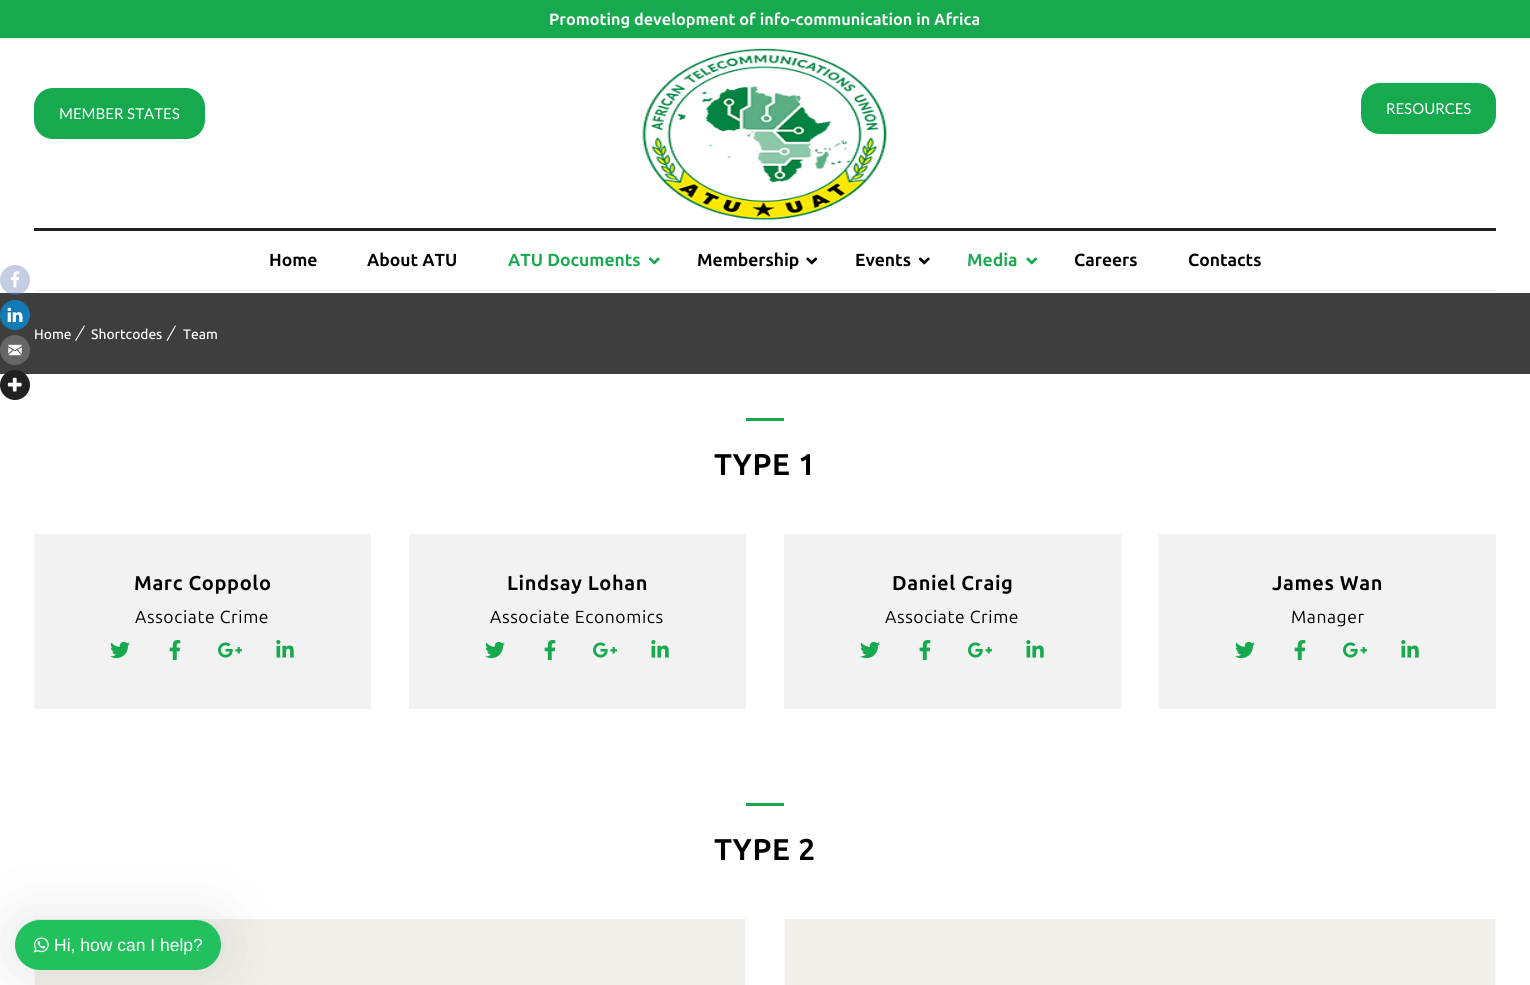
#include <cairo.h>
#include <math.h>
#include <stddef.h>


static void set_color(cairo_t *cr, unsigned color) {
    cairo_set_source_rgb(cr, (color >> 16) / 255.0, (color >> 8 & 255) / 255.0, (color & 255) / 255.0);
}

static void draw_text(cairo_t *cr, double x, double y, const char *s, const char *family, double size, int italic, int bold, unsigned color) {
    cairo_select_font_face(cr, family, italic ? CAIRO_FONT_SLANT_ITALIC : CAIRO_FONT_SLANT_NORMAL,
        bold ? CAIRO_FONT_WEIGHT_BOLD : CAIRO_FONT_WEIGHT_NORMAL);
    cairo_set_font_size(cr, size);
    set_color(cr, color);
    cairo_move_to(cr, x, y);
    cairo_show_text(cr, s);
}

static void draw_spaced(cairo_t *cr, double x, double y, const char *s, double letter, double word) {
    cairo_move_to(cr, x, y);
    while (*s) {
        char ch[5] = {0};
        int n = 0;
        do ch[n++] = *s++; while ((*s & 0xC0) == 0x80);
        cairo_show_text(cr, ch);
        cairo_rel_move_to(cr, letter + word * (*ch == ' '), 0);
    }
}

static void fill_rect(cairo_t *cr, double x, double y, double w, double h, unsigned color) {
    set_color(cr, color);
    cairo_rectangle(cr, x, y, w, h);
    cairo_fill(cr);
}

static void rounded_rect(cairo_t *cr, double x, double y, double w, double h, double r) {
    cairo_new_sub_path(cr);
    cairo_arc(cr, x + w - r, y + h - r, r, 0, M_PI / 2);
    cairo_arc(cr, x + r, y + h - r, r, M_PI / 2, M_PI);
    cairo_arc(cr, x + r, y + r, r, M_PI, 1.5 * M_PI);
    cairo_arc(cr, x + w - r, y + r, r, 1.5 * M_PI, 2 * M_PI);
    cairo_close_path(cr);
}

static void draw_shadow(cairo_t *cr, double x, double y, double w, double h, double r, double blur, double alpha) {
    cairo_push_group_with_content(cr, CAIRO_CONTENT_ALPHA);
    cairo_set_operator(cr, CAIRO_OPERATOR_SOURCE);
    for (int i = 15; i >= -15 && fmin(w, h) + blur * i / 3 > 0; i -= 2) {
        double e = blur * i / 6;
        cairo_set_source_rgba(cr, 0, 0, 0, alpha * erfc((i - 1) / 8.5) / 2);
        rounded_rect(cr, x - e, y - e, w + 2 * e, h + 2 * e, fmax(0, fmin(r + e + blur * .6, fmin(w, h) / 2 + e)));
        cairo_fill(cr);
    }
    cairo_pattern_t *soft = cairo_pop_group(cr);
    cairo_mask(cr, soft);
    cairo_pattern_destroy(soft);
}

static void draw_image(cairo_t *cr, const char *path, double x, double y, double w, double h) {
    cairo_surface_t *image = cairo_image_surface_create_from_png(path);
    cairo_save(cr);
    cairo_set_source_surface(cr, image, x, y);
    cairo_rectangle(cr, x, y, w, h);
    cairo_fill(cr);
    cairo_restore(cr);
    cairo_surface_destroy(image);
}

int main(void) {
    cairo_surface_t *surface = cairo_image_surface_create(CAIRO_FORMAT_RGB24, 1530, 985);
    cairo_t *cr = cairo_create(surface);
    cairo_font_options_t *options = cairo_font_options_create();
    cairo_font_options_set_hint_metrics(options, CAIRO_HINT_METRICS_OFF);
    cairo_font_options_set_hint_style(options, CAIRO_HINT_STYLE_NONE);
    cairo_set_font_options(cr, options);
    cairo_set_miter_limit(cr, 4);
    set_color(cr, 0xFFFFFF);
    cairo_paint(cr);
    fill_rect(cr, 0, 293, 1530, 81, 0x3E3E3E);
    set_color(cr, 0x3A579A);
    cairo_arc(cr, 15, 280, 15, 0, 2 * M_PI);
    cairo_fill(cr);
    draw_image(cr, "assets/img1.png", 10, 271, 10, 17);
    set_color(cr, 0x127BB6);
    cairo_arc(cr, 15, 315, 15, 0, 2 * M_PI);
    cairo_fill(cr);
    draw_image(cr, "assets/img2.png", 7, 307, 16, 16);
    set_color(cr, 0x666666);
    cairo_arc(cr, 15, 350, 15, 0, 2 * M_PI);
    cairo_fill(cr);
    draw_image(cr, "assets/img3.png", 8, 344, 14, 12);
    set_color(cr, 0x212121);
    cairo_arc(cr, 15, 385, 15, 0, 2 * M_PI);
    cairo_fill(cr);
    draw_text(cr, 6, 394, "1", "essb", 17.5, 0, 0, 0xFFFFFF);
    fill_rect(cr, 0, 0, 1530, 38, 0x16A94E);
    draw_text(cr, 549, 25, "Promoting development of info-communication in Africa", "Ubuntu", 16.25, 0, 1, 0xFFFFFF);
    cairo_set_source_rgba(cr, 1, 1, 1, 0.7);
    cairo_rectangle(cr, 0, 265, 30, 28);
    cairo_fill(cr);
    set_color(cr, 0x16A94E);
    rounded_rect(cr, 34, 88, 171, 51, 19);
    cairo_fill(cr);
    draw_text(cr, 59, 119, "MEMBER STATES", "Lato", 15, 0, 0, 0xFFFFFF);
    draw_image(cr, "assets/img4.png", 642, 48, 245, 172);
    set_color(cr, 0x16A94E);
    rounded_rect(cr, 1361, 83, 135, 51, 19);
    cairo_fill(cr);
    draw_text(cr, 1386, 114, "RESOURCES", "Lato", 15, 0, 0, 0xFFFFFF);
    fill_rect(cr, 34, 228, 1462, 3, 0x222222);
    fill_rect(cr, 34, 290, 1462, 1, 0xEEEEEE);
    draw_text(cr, 269, 266, "Home", "Ubuntu", 17.5, 0, 1, 0x000000);
    draw_text(cr, 367, 266, "About ATU", "Ubuntu", 17.5, 0, 1, 0x000000);
    draw_text(cr, 508, 266, "ATU Documents", "Ubuntu", 17.5, 0, 1, 0x16A94E);
    draw_image(cr, "assets/img5.png", 648, 257, 12, 8);
    draw_text(cr, 697, 266, "Membership", "Ubuntu", 17.5, 0, 1, 0x000000);
    draw_image(cr, "assets/img6.png", 806, 257, 12, 8);
    draw_text(cr, 855, 266, "Events", "Ubuntu", 17.5, 0, 1, 0x000000);
    draw_image(cr, "assets/img7.png", 918, 257, 12, 8);
    draw_text(cr, 967, 266, "Media", "Ubuntu", 17.5, 0, 1, 0x16A94E);
    draw_image(cr, "assets/img8.png", 1026, 257, 12, 8);
    draw_text(cr, 1074, 266, "Careers", "Ubuntu", 17.5, 0, 1, 0x000000);
    draw_text(cr, 1188, 266, "Contacts", "Ubuntu", 17.5, 0, 1, 0x000000);
    draw_text(cr, 34, 339, "Home", "Ubuntu Medium", 13.75, 0, 0, 0xFFFFFF);
    cairo_new_path(cr);
    cairo_move_to(cr, 84, 325.5);
    cairo_line_to(cr, 85, 326);
    cairo_line_to(cr, 76, 341);
    cairo_line_to(cr, 75, 340.5);
    cairo_close_path(cr);
    cairo_fill(cr);
    draw_text(cr, 91, 339, "Shortcodes", "Ubuntu Medium", 13.75, 0, 0, 0xFFFFFF);
    cairo_new_path(cr);
    cairo_move_to(cr, 175, 325.5);
    cairo_line_to(cr, 176, 326);
    cairo_line_to(cr, 167.5, 341);
    cairo_line_to(cr, 166.5, 340.5);
    cairo_close_path(cr);
    cairo_fill(cr);
    draw_text(cr, 183, 339, "Team", "Ubuntu Medium", 13.75, 0, 0, 0xFFFFFF);
    fill_rect(cr, 746, 418, 38, 3, 0x16A94E);
    cairo_select_font_face(cr, "Ubuntu", CAIRO_FONT_SLANT_NORMAL, CAIRO_FONT_WEIGHT_BOLD);
    cairo_set_font_size(cr, 30);
    set_color(cr, 0x000000);
    draw_spaced(cr, 714, 475, "TYPE 1", 0.6, 0);
    fill_rect(cr, 34, 534, 337, 175, 0xF2F2F2);
    cairo_set_font_size(cr, 20);
    set_color(cr, 0x000000);
    draw_spaced(cr, 134, 590, "Marc Coppolo", 0.6, 0);
    cairo_select_font_face(cr, "Ubuntu", CAIRO_FONT_SLANT_NORMAL, CAIRO_FONT_WEIGHT_NORMAL);
    cairo_set_font_size(cr, 17.5);
    draw_spaced(cr, 135, 623, "Associate Crime", 0.6, 0);
    draw_image(cr, "assets/img9.png", 110, 641, 20, 18);
    draw_image(cr, "assets/img10.png", 169, 640, 12, 20);
    draw_image(cr, "assets/img11.png", 218, 642, 24, 16);
    draw_image(cr, "assets/img12.png", 276, 640, 18, 18);
    fill_rect(cr, 409, 534, 337, 175, 0xF2F2F2);
    cairo_select_font_face(cr, "Ubuntu", CAIRO_FONT_SLANT_NORMAL, CAIRO_FONT_WEIGHT_BOLD);
    cairo_set_font_size(cr, 20);
    set_color(cr, 0x000000);
    draw_spaced(cr, 507, 590, "Lindsay Lohan", 0.6, 0);
    cairo_select_font_face(cr, "Ubuntu", CAIRO_FONT_SLANT_NORMAL, CAIRO_FONT_WEIGHT_NORMAL);
    cairo_set_font_size(cr, 17.5);
    draw_spaced(cr, 490, 623, "Associate Economics", 0.6, 0);
    draw_image(cr, "assets/img9.png", 485, 641, 20, 18);
    draw_image(cr, "assets/img10.png", 544, 640, 12, 20);
    draw_image(cr, "assets/img11.png", 593, 642, 24, 16);
    draw_image(cr, "assets/img12.png", 651, 640, 18, 18);
    fill_rect(cr, 784, 534, 337, 175, 0xF2F2F2);
    cairo_select_font_face(cr, "Ubuntu", CAIRO_FONT_SLANT_NORMAL, CAIRO_FONT_WEIGHT_BOLD);
    cairo_set_font_size(cr, 20);
    set_color(cr, 0x000000);
    draw_spaced(cr, 892, 590, "Daniel Craig", 0.6, 0);
    cairo_select_font_face(cr, "Ubuntu", CAIRO_FONT_SLANT_NORMAL, CAIRO_FONT_WEIGHT_NORMAL);
    cairo_set_font_size(cr, 17.5);
    draw_spaced(cr, 885, 623, "Associate Crime", 0.6, 0);
    draw_image(cr, "assets/img9.png", 860, 641, 20, 18);
    draw_image(cr, "assets/img10.png", 919, 640, 12, 20);
    draw_image(cr, "assets/img11.png", 968, 642, 24, 16);
    draw_image(cr, "assets/img12.png", 1026, 640, 18, 18);
    fill_rect(cr, 1159, 534, 337, 175, 0xF2F2F2);
    cairo_select_font_face(cr, "Ubuntu", CAIRO_FONT_SLANT_NORMAL, CAIRO_FONT_WEIGHT_BOLD);
    cairo_set_font_size(cr, 20);
    set_color(cr, 0x000000);
    draw_spaced(cr, 1272, 590, "James Wan", 0.6, 0);
    cairo_select_font_face(cr, "Ubuntu", CAIRO_FONT_SLANT_NORMAL, CAIRO_FONT_WEIGHT_NORMAL);
    cairo_set_font_size(cr, 17.5);
    draw_spaced(cr, 1291, 623, "Manager", 0.6, 0);
    draw_image(cr, "assets/img9.png", 1235, 641, 20, 18);
    draw_image(cr, "assets/img10.png", 1294, 640, 12, 20);
    draw_image(cr, "assets/img11.png", 1343, 642, 24, 16);
    draw_image(cr, "assets/img12.png", 1401, 640, 18, 18);
    fill_rect(cr, 746, 803, 38, 3, 0x16A94E);
    cairo_select_font_face(cr, "Ubuntu", CAIRO_FONT_SLANT_NORMAL, CAIRO_FONT_WEIGHT_BOLD);
    cairo_set_font_size(cr, 30);
    set_color(cr, 0x000000);
    draw_spaced(cr, 714, 860, "TYPE 2", 0.6, 0);
    fill_rect(cr, 35, 919, 710, 66, 0xF1EFEA);
    fill_rect(cr, 745, 919, 1, 66, 0xFAFAF6);
    fill_rect(cr, 34, 919, 1, 66, 0xFAFAF6);
    fill_rect(cr, 785, 919, 710, 66, 0xF1EFEA);
    fill_rect(cr, 1495, 919, 1, 66, 0xFAFAF6);
    fill_rect(cr, 784, 919, 1, 66, 0xFAFAF6);
    set_color(cr, 0x000000);
    draw_shadow(cr, 15, 920, 206, 50, 25, 31, 0.1);
    set_color(cr, 0x22C15E);
    rounded_rect(cr, 15, 920, 206, 50, 25);
    cairo_fill(cr);
    draw_image(cr, "assets/img13.png", 33, 937, 16, 16);
    draw_text(cr, 54, 951, "Hi, how can I help?", "Liberation Sans", 17.5, 0, 0, 0xFFFFFF);
    cairo_surface_write_to_png(surface, "output.png");
    cairo_font_options_destroy(options);
    cairo_destroy(cr);
    cairo_surface_destroy(surface);
    return 0;
}
